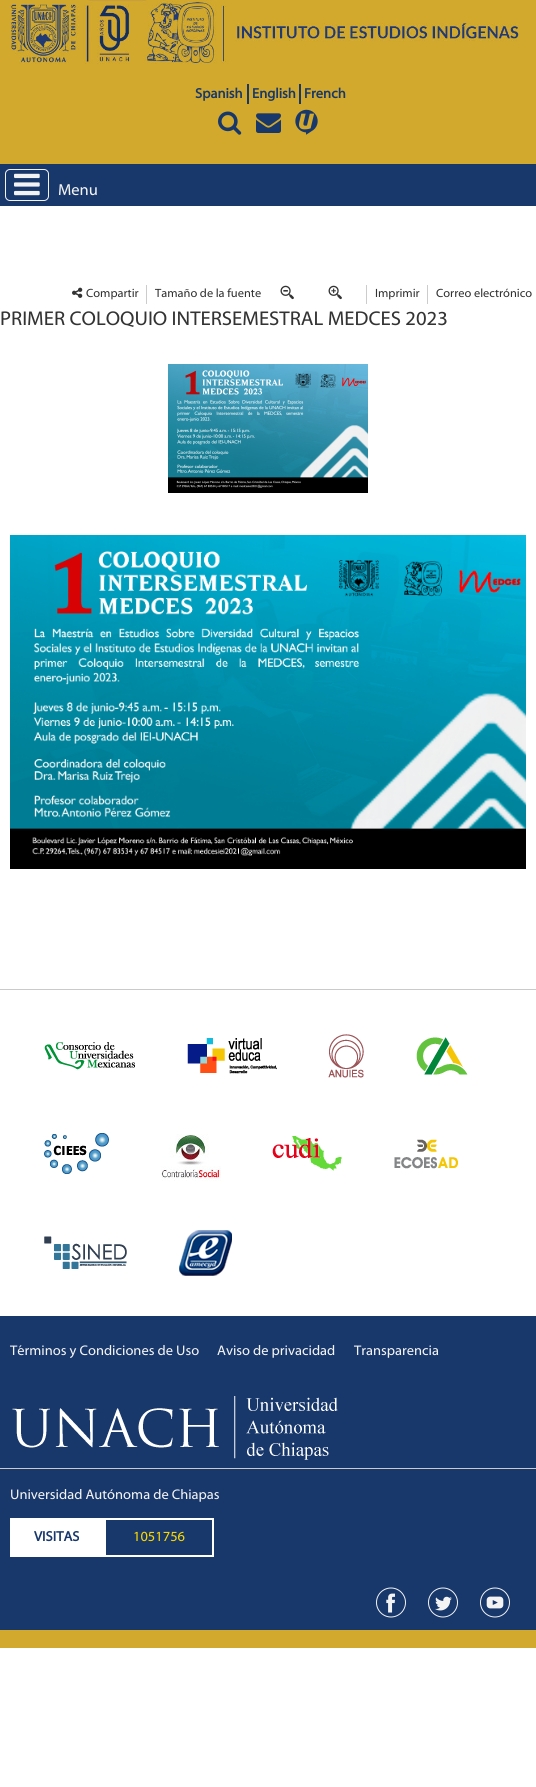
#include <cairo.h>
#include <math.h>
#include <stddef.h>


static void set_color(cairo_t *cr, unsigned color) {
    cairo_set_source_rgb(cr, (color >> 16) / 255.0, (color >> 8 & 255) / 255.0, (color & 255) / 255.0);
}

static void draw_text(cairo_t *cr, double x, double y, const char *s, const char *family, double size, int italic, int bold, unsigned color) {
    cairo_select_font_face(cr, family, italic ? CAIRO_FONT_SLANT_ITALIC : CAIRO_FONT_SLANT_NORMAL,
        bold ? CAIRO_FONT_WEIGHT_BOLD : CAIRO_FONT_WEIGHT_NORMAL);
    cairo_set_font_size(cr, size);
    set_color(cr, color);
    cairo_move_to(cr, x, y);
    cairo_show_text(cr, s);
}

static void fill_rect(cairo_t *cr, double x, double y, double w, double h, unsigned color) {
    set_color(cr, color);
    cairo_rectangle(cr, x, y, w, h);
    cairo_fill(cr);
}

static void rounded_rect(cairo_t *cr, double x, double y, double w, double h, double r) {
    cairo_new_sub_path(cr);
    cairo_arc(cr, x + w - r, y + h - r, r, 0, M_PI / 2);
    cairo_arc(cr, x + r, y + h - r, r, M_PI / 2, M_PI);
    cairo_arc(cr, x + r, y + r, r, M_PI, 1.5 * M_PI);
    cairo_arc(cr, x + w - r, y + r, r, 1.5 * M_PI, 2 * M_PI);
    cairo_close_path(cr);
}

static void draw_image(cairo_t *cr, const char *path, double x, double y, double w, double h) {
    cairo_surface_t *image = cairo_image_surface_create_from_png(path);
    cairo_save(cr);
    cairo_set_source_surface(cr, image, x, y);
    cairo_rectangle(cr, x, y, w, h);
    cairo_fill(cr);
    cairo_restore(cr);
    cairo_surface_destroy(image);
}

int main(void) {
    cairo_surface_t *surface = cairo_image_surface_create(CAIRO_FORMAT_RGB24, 536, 1787);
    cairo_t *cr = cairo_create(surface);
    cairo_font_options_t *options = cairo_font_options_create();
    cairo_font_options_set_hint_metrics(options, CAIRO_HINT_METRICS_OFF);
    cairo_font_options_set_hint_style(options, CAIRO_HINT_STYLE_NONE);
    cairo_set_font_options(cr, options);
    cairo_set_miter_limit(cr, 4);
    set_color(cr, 0xFFFFFF);
    cairo_paint(cr);
    fill_rect(cr, 0, 0, 536, 164, 0xD2A92D);
    draw_image(cr, "assets/img1.png", 10, 0, 509, 64);
    draw_text(cr, 195, 98, "Spanish", "Myriad", 14, 0, 1, 0x18386B);
    fill_rect(cr, 247, 84, 2, 20, 0x18386B);
    draw_text(cr, 252, 98, "English", "Myriad", 14, 0, 1, 0x18386B);
    fill_rect(cr, 299, 84, 2, 20, 0x18386B);
    draw_text(cr, 304, 98, "French", "Myriad", 14, 0, 1, 0x18386B);
    draw_image(cr, "assets/img2.png", 218, 111, 24, 24);
    draw_image(cr, "assets/img3.png", 256, 113, 25, 20);
    draw_image(cr, "assets/img4.png", 295, 109, 23, 26);
    fill_rect(cr, 0, 164, 536, 42, 0x18386B);
    rounded_rect(cr, 5.5, 169.5, 43, 31, 4.5);
    set_color(cr, 0xF3F3F3);
    cairo_set_line_width(cr, 1);
    cairo_stroke(cr);
    draw_image(cr, "assets/img5.png", 14, 173, 26, 23);
    draw_text(cr, 58, 195, "Menu", "Myriad", 16, 0, 0, 0xF3F3F3);
    draw_image(cr, "assets/img6.png", 72, 287, 11, 11);
    draw_text(cr, 86, 297, "Compartir", "Myriad", 12, 0, 0, 0x333333);
    fill_rect(cr, 146, 285, 1, 19, 0xCCCCCC);
    draw_text(cr, 155, 297, "Tamaño de la fuente", "Myriad", 12, 0, 0, 0x333333);
    draw_image(cr, "assets/img7.png", 280, 285, 14, 15);
    draw_image(cr, "assets/img8.png", 328, 285, 14, 15);
    fill_rect(cr, 366, 285, 1, 19, 0xCCCCCC);
    draw_text(cr, 375, 297, "Imprimir", "Myriad", 12, 0, 0, 0x333333);
    fill_rect(cr, 427, 285, 1, 19, 0xCCCCCC);
    draw_text(cr, 436, 297, "Correo electrónico", "Myriad", 12, 0, 0, 0x333333);
    draw_text(cr, 0, 325, "PRIMER COLOQUIO INTERSEMESTRAL MEDCES 2023", "Myriad", 20, 0, 0, 0x333333);
    draw_image(cr, "assets/img9.png", 168, 364, 200, 129);
    draw_image(cr, "assets/img10.png", 10, 535, 516, 334);
    fill_rect(cr, 0, 989, 536, 1, 0xCACACA);
    draw_image(cr, "assets/img11.png", 44, 1042, 91, 28);
    draw_image(cr, "assets/img12.png", 187, 1038, 90, 36);
    draw_image(cr, "assets/img13.png", 328, 1034, 36, 44);
    draw_image(cr, "assets/img14.png", 416, 1037, 52, 38);
    draw_image(cr, "assets/img15.png", 44, 1133, 65, 41);
    draw_image(cr, "assets/img16.png", 161, 1134, 60, 47);
    draw_image(cr, "assets/img17.png", 272, 1136, 70, 35);
    draw_image(cr, "assets/img18.png", 394, 1139, 64, 30);
    draw_image(cr, "assets/img19.png", 44, 1236, 83, 33);
    draw_image(cr, "assets/img20.png", 179, 1230, 53, 46);
    fill_rect(cr, 0, 1316, 536, 314, 0x18386B);
    fill_rect(cr, 0, 1630, 536, 18, 0xD2A92D);
    draw_text(cr, 10, 1355, "Términos y Condiciones de Uso", "Myriad", 14, 0, 0, 0xF3F3F3);
    draw_text(cr, 217, 1355, "Aviso de privacidad", "Myriad", 14, 0, 0, 0xF3F3F3);
    draw_text(cr, 354, 1355, "Transparencia", "Myriad", 14, 0, 0, 0xF3F3F3);
    draw_image(cr, "assets/img21.png", 12, 1396, 326, 64);
    fill_rect(cr, 0, 1468, 536, 1, 0xCACACA);
    draw_text(cr, 10, 1499, "Universidad Autónoma de Chiapas", "Myriad", 14, 0, 0, 0xF3F3F3);
    fill_rect(cr, 10, 1518, 94, 39, 0xFFFFFF);
    draw_text(cr, 34, 1541, "VISITAS", "Myriad", 14, 0, 1, 0x18386B);
    cairo_rectangle(cr, 105, 1519, 108, 37);
    set_color(cr, 0xFFFFFF);
    cairo_set_line_width(cr, 2);
    cairo_stroke(cr);
    draw_text(cr, 133, 1541, "1051756", "Myriad", 14, 0, 0, 0xFAD701);
    draw_image(cr, "assets/img22.png", 376, 1587, 30, 31);
    draw_image(cr, "assets/img23.png", 428, 1587, 30, 31);
    draw_image(cr, "assets/img24.png", 480, 1587, 30, 31);
    cairo_surface_write_to_png(surface, "output.png");
    cairo_font_options_destroy(options);
    cairo_destroy(cr);
    cairo_surface_destroy(surface);
    return 0;
}
